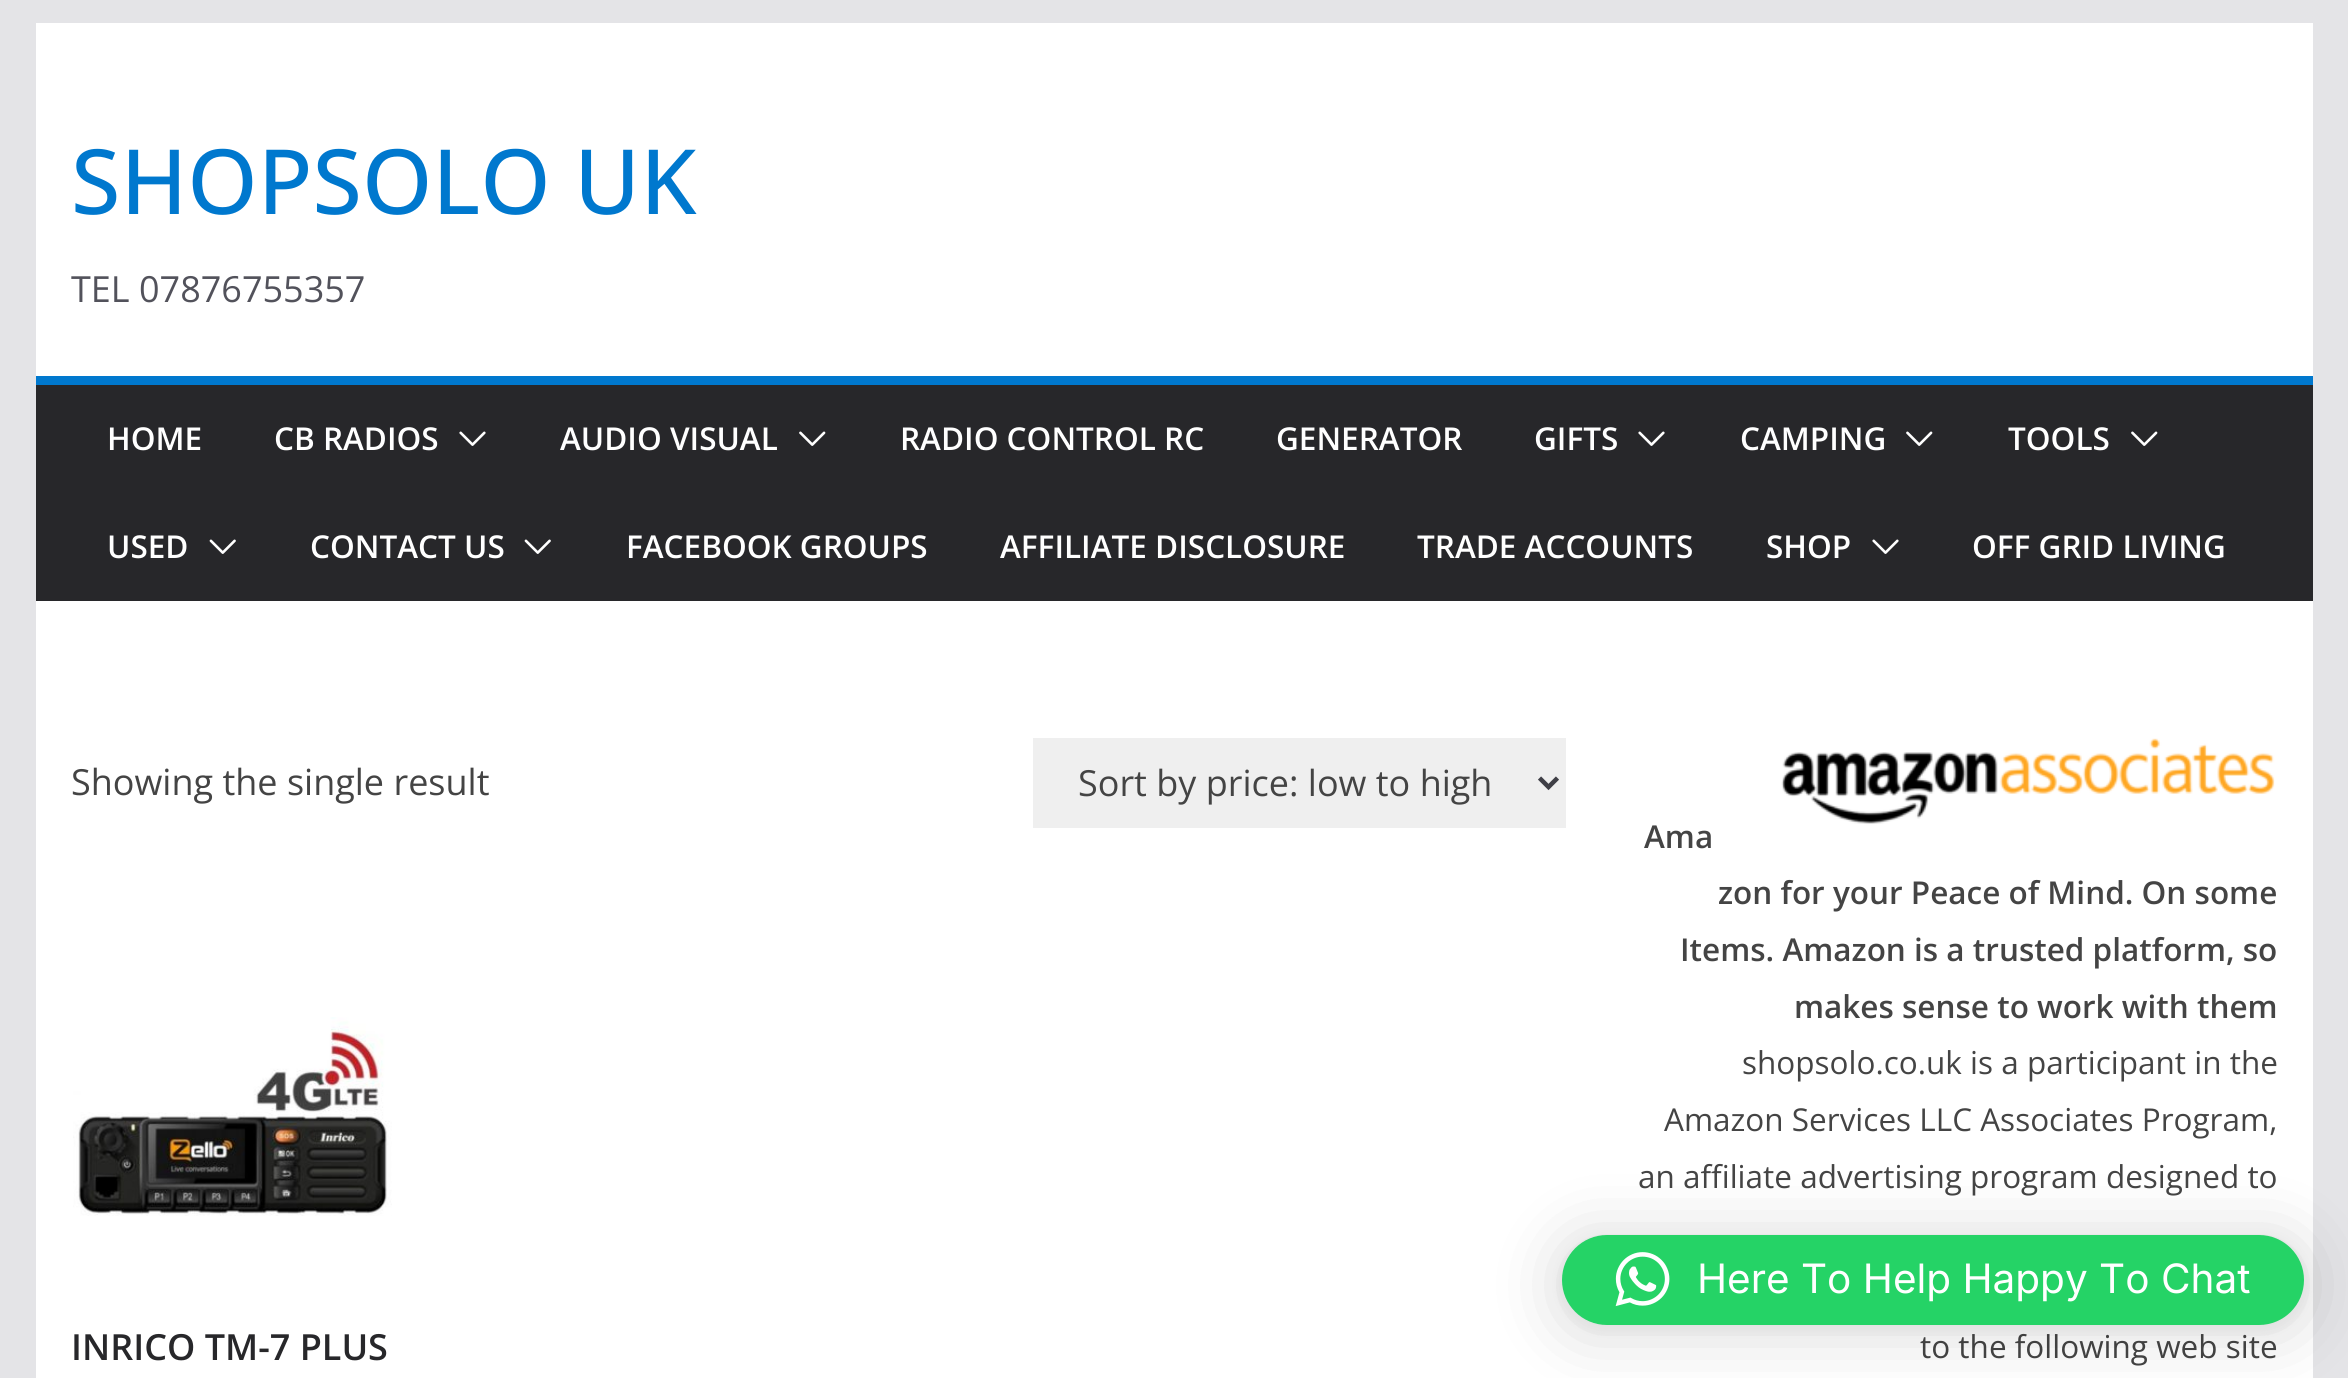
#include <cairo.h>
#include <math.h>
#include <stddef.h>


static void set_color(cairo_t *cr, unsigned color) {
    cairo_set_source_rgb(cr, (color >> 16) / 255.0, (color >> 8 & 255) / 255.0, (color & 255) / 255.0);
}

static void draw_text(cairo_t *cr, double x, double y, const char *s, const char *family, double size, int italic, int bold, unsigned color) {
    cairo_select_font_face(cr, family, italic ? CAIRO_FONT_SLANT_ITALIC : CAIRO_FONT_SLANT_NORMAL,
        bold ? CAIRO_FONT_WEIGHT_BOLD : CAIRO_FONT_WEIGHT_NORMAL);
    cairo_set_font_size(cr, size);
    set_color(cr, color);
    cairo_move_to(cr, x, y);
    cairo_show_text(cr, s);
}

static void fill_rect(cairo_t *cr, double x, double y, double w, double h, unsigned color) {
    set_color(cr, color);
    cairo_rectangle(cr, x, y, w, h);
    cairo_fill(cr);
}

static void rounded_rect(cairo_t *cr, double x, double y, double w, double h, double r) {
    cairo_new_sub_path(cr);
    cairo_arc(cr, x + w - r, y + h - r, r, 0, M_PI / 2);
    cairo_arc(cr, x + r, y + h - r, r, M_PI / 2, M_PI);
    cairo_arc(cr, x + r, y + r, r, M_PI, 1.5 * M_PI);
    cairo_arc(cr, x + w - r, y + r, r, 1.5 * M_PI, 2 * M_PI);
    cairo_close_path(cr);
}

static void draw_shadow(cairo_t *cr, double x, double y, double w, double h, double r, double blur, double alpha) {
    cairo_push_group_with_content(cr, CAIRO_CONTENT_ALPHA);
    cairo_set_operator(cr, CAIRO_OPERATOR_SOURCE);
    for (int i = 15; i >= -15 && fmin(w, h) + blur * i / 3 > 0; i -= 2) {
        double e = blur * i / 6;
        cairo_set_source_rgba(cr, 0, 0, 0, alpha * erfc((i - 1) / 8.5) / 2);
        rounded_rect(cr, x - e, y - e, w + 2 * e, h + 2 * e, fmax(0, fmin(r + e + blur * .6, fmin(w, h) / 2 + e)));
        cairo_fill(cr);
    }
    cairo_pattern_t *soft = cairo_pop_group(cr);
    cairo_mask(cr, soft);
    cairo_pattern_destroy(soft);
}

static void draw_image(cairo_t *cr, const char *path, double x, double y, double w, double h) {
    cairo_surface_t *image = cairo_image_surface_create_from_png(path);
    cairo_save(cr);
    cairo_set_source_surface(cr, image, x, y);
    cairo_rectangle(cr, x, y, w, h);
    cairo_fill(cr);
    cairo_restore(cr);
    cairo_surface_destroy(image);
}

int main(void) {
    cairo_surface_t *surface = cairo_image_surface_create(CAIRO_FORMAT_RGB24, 2348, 1378);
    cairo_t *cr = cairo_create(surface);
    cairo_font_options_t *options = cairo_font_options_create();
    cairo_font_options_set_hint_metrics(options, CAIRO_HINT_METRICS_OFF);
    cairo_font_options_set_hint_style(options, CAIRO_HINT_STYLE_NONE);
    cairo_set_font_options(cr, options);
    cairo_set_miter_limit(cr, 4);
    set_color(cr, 0xE4E4E7);
    cairo_paint(cr);
    fill_rect(cr, 36, 23, 2277, 353, 0xFFFFFF);
    draw_text(cr, 71, 214, "SHOPSOLO UK", "Open Sans Medium", 90, 0, 0, 0x0078CE);
    draw_text(cr, 71, 302, "TEL 07876755357", "Open Sans", 36, 0, 0, 0x52525B);
    fill_rect(cr, 36, 385, 2277, 216, 0x27272A);
    fill_rect(cr, 36, 376, 2277, 9, 0x0078CE);
    draw_text(cr, 107, 450, "HOME", "Open Sans SemiBold", 31.5, 0, 0, 0xFFFFFF);
    draw_text(cr, 274, 450, "CB RADIOS", "Open Sans SemiBold", 31.5, 0, 0, 0xFFFFFF);
    draw_image(cr, "assets/img1.png", 459, 431, 27, 15);
    draw_text(cr, 560, 450, "AUDIO VISUAL", "Open Sans SemiBold", 31.5, 0, 0, 0xFFFFFF);
    draw_image(cr, "assets/img2.png", 799, 431, 27, 15);
    draw_text(cr, 900, 450, "RADIO CONTROL RC", "Open Sans SemiBold", 31.5, 0, 0, 0xFFFFFF);
    draw_text(cr, 1276, 450, "GENERATOR", "Open Sans SemiBold", 31.5, 0, 0, 0xFFFFFF);
    draw_text(cr, 1534, 450, "GIFTS", "Open Sans SemiBold", 31.5, 0, 0, 0xFFFFFF);
    draw_image(cr, "assets/img1.png", 1638, 431, 27, 15);
    draw_text(cr, 1740, 450, "CAMPING", "Open Sans SemiBold", 31.5, 0, 0, 0xFFFFFF);
    draw_image(cr, "assets/img2.png", 1906, 431, 27, 15);
    draw_text(cr, 2008, 450, "TOOLS", "Open Sans SemiBold", 31.5, 0, 0, 0xFFFFFF);
    draw_image(cr, "assets/img2.png", 2131, 431, 27, 15);
    draw_text(cr, 107, 558, "USED", "Open Sans SemiBold", 31.5, 0, 0, 0xFFFFFF);
    draw_image(cr, "assets/img3.png", 209, 539, 27, 15);
    draw_text(cr, 310, 558, "CONTACT US", "Open Sans SemiBold", 31.5, 0, 0, 0xFFFFFF);
    draw_image(cr, "assets/img3.png", 524, 539, 27, 15);
    draw_text(cr, 626, 558, "FACEBOOK GROUPS", "Open Sans SemiBold", 31.5, 0, 0, 0xFFFFFF);
    draw_text(cr, 1000, 558, "AFFILIATE DISCLOSURE", "Open Sans SemiBold", 31.5, 0, 0, 0xFFFFFF);
    draw_text(cr, 1417, 558, "TRADE ACCOUNTS", "Open Sans SemiBold", 31.5, 0, 0, 0xFFFFFF);
    draw_text(cr, 1766, 558, "SHOP", "Open Sans SemiBold", 31.5, 0, 0, 0xFFFFFF);
    draw_image(cr, "assets/img1.png", 1872, 539, 27, 15);
    draw_text(cr, 1972, 558, "OFF GRID LIVING", "Open Sans SemiBold", 31.5, 0, 0, 0xFFFFFF);
    fill_rect(cr, 36, 601, 2277, 777, 0xFFFFFF);
    draw_text(cr, 71, 795, "Showing the single result", "Open Sans", 36, 0, 0, 0x444444);
    fill_rect(cr, 1033, 738, 533, 90, 0xEFEFEF);
    cairo_new_path(cr);
    cairo_move_to(cr, 1539.5, 778);
    cairo_line_to(cr, 1548.5, 787);
    cairo_line_to(cr, 1557.5, 778);
    set_color(cr, 0x3F3F46);
    cairo_set_line_width(cr, 4.5);
    cairo_stroke(cr);
    draw_text(cr, 1078, 796, "Sort by price: low to high", "Open Sans", 36, 0, 0, 0x444444);
    draw_image(cr, "assets/img4.png", 73, 1017, 319, 199);
    draw_text(cr, 71, 1360, "INRICO TM-7 PLUS", "Open Sans SemiBold", 36, 0, 0, 0x27272A);
    draw_image(cr, "assets/img5.png", 1780, 736, 497, 92);
    draw_text(cr, 1644, 848, "Ama", "Open Sans SemiBold", 31.5, 0, 0, 0x444444);
    draw_text(cr, 1718, 904, "zon for your Peace of Mind. On some", "Open Sans SemiBold", 31.5, 0, 0, 0x444444);
    draw_text(cr, 1680, 961, "Items. Amazon is a trusted platform, so", "Open Sans SemiBold", 31.5, 0, 0, 0x444444);
    draw_text(cr, 1794, 1018, "makes sense to work with them", "Open Sans SemiBold", 31.5, 0, 0, 0x444444);
    draw_text(cr, 1742, 1074, "shopsolo.co.uk is a participant in the", "Open Sans", 31.5, 0, 0, 0x444444);
    draw_text(cr, 1664, 1131, "Amazon Services LLC Associates Program,", "Open Sans", 31.5, 0, 0, 0x444444);
    draw_text(cr, 1638, 1188, "an affiliate advertising program designed to", "Open Sans", 31.5, 0, 0, 0x444444);
    draw_text(cr, 1920, 1358, "to the following web site", "Open Sans", 31.5, 0, 0, 0x444444);
    set_color(cr, 0x000000);
    draw_shadow(cr, 1562, 1240, 742, 90, 45, 36, 0.16);
    draw_shadow(cr, 1562, 1238, 742, 90, 45, 7, 0.06);
    set_color(cr, 0x25D366);
    rounded_rect(cr, 1562, 1235, 742, 90, 45);
    cairo_fill(cr);
    draw_image(cr, "assets/img6.png", 1615, 1252, 55, 55);
    draw_text(cr, 1697, 1293, "Here To Help Happy To Chat", "Inter", 40.5, 0, 0, 0xFFFFFF);
    cairo_surface_write_to_png(surface, "output.png");
    cairo_font_options_destroy(options);
    cairo_destroy(cr);
    cairo_surface_destroy(surface);
    return 0;
}
